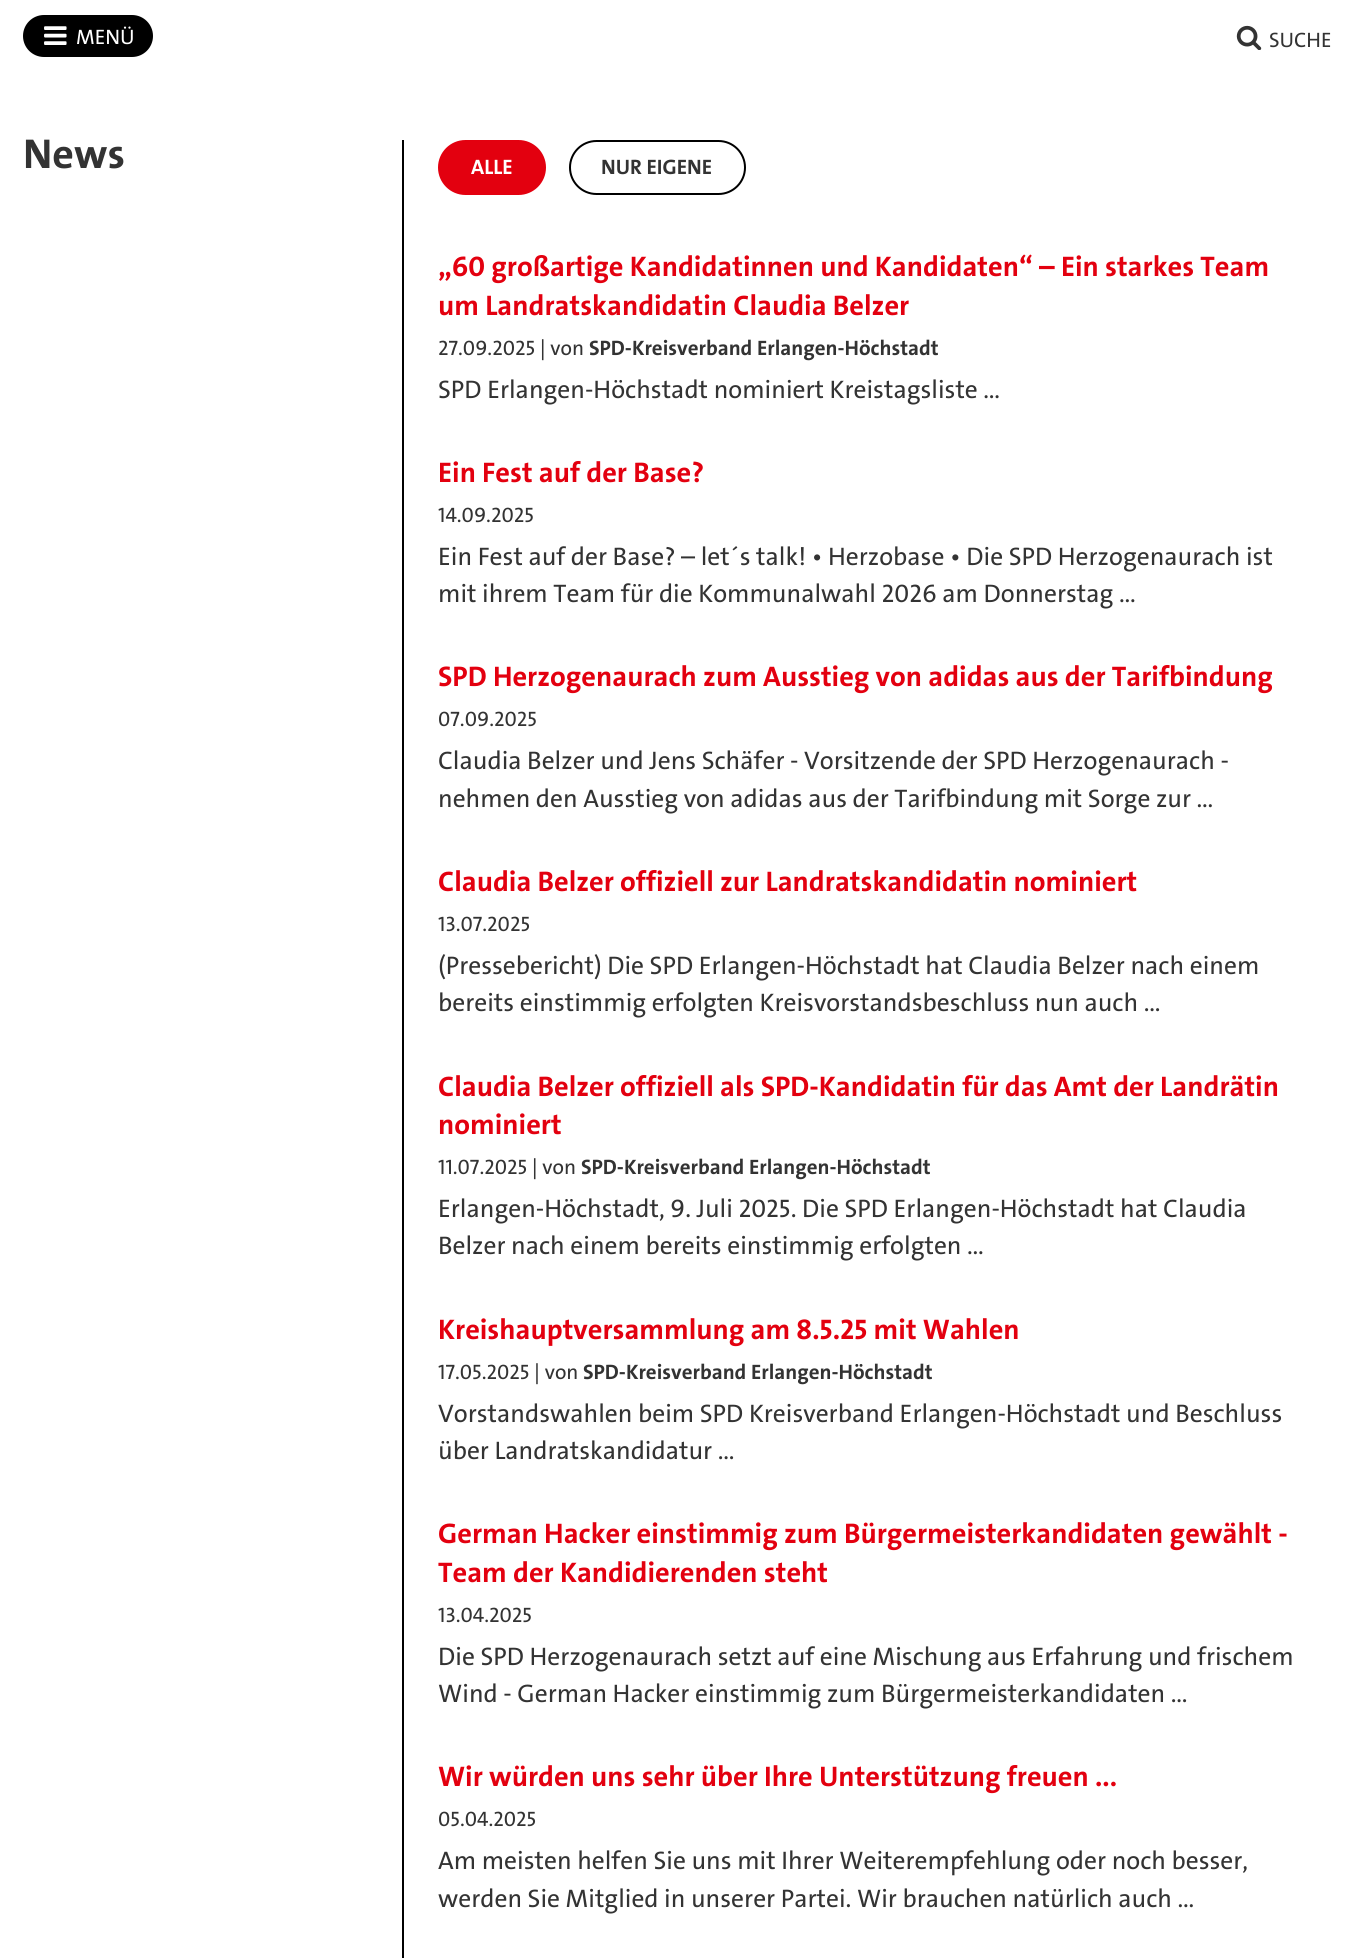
#include <cairo.h>
#include <math.h>
#include <stddef.h>


static void set_color(cairo_t *cr, unsigned color) {
    cairo_set_source_rgb(cr, (color >> 16) / 255.0, (color >> 8 & 255) / 255.0, (color & 255) / 255.0);
}

static void draw_text(cairo_t *cr, double x, double y, const char *s, const char *family, double size, int italic, int bold, unsigned color) {
    cairo_select_font_face(cr, family, italic ? CAIRO_FONT_SLANT_ITALIC : CAIRO_FONT_SLANT_NORMAL,
        bold ? CAIRO_FONT_WEIGHT_BOLD : CAIRO_FONT_WEIGHT_NORMAL);
    cairo_set_font_size(cr, size);
    set_color(cr, color);
    cairo_move_to(cr, x, y);
    cairo_show_text(cr, s);
}

static void fill_rect(cairo_t *cr, double x, double y, double w, double h, unsigned color) {
    set_color(cr, color);
    cairo_rectangle(cr, x, y, w, h);
    cairo_fill(cr);
}

static void rounded_rect(cairo_t *cr, double x, double y, double w, double h, double r) {
    cairo_new_sub_path(cr);
    cairo_arc(cr, x + w - r, y + h - r, r, 0, M_PI / 2);
    cairo_arc(cr, x + r, y + h - r, r, M_PI / 2, M_PI);
    cairo_arc(cr, x + r, y + r, r, M_PI, 1.5 * M_PI);
    cairo_arc(cr, x + w - r, y + r, r, 1.5 * M_PI, 2 * M_PI);
    cairo_close_path(cr);
}

static void draw_image(cairo_t *cr, const char *path, double x, double y, double w, double h) {
    cairo_surface_t *image = cairo_image_surface_create_from_png(path);
    cairo_save(cr);
    cairo_set_source_surface(cr, image, x, y);
    cairo_rectangle(cr, x, y, w, h);
    cairo_fill(cr);
    cairo_restore(cr);
    cairo_surface_destroy(image);
}

int main(void) {
    cairo_surface_t *surface = cairo_image_surface_create(CAIRO_FORMAT_RGB24, 1354, 1958);
    cairo_t *cr = cairo_create(surface);
    cairo_font_options_t *options = cairo_font_options_create();
    cairo_font_options_set_hint_metrics(options, CAIRO_HINT_METRICS_OFF);
    cairo_font_options_set_hint_style(options, CAIRO_HINT_STYLE_NONE);
    cairo_set_font_options(cr, options);
    cairo_set_miter_limit(cr, 4);
    set_color(cr, 0xFFFFFF);
    cairo_paint(cr);
    set_color(cr, 0x000000);
    rounded_rect(cr, 24.5, 16.5, 127, 39, 19.5);
    cairo_fill_preserve(cr);
    cairo_set_line_width(cr, 3);
    cairo_stroke(cr);
    draw_image(cr, "assets/img1.png", 44, 26, 23, 19);
    draw_text(cr, 76, 44, "MENÜ", "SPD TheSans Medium", 21, 0, 0, 0xFFFFFF);
    draw_image(cr, "assets/img2.png", 1236, 25, 26, 25);
    draw_text(cr, 1269, 47, "SUCHE", "SPD TheSans Medium", 21, 0, 0, 0x333333);
    draw_text(cr, 23, 168, "News", "SPD TheSans", 42, 0, 1, 0x333333);
    fill_rect(cr, 402, 140, 2, 1818, 0x000000);
    set_color(cr, 0xE3000F);
    rounded_rect(cr, 439, 141, 106, 53, 26.5);
    cairo_fill_preserve(cr);
    cairo_set_line_width(cr, 2);
    cairo_stroke(cr);
    draw_text(cr, 471, 174, "ALLE", "SPD TheSans", 21, 0, 1, 0xFFFFFF);
    rounded_rect(cr, 570, 141, 175, 53, 26.5);
    set_color(cr, 0x000000);
    cairo_stroke(cr);
    draw_text(cr, 601, 174, "NUR EIGENE", "SPD TheSans", 21, 0, 1, 0x333333);
    draw_text(cr, 438, 276, "„60 großartige Kandidatinnen und Kandidaten“ – Ein starkes Team", "SPD TheSans", 28.5, 0, 1, 0xE3000F);
    draw_text(cr, 438, 315, "um Landratskandidatin Claudia Belzer", "SPD TheSans", 28.5, 0, 1, 0xE3000F);
    draw_text(cr, 438, 355, "27.09.2025 | von", "SPD TheSans Medium", 21, 0, 0, 0x333333);
    draw_text(cr, 589, 355, "SPD-Kreisverband Erlangen-Höchstadt", "SPD TheSans", 21, 0, 1, 0x333333);
    draw_text(cr, 438, 398, "SPD Erlangen-Höchstadt nominiert Kreistagsliste …", "SPD TheSans Medium", 25.5, 0, 0, 0x333333);
    draw_text(cr, 438, 482, "Ein Fest auf der Base?", "SPD TheSans", 28.5, 0, 1, 0xE3000F);
    draw_text(cr, 438, 522, "14.09.2025", "SPD TheSans Medium", 21, 0, 0, 0x333333);
    draw_text(cr, 438, 565, "Ein Fest auf der Base? – let´s talk! • Herzobase • Die SPD Herzogenaurach ist", "SPD TheSans Medium", 25.5, 0, 0, 0x333333);
    draw_text(cr, 438, 602, "mit ihrem Team für die Kommunalwahl 2026 am Donnerstag …", "SPD TheSans Medium", 25.5, 0, 0, 0x333333);
    draw_text(cr, 438, 686, "SPD Herzogenaurach zum Ausstieg von adidas aus der Tarifbindung", "SPD TheSans", 28.5, 0, 1, 0xE3000F);
    draw_text(cr, 438, 726, "07.09.2025", "SPD TheSans Medium", 21, 0, 0, 0x333333);
    draw_text(cr, 438, 769, "Claudia Belzer und Jens Schäfer - Vorsitzende der SPD Herzogenaurach -", "SPD TheSans Medium", 25.5, 0, 0, 0x333333);
    draw_text(cr, 438, 807, "nehmen den Ausstieg von adidas aus der Tarifbindung mit Sorge zur …", "SPD TheSans Medium", 25.5, 0, 0, 0x333333);
    draw_text(cr, 438, 891, "Claudia Belzer offiziell zur Landratskandidatin nominiert", "SPD TheSans", 28.5, 0, 1, 0xE3000F);
    draw_text(cr, 438, 931, "13.07.2025", "SPD TheSans Medium", 21, 0, 0, 0x333333);
    draw_text(cr, 438, 974, "(Pressebericht) Die SPD Erlangen-Höchstadt hat Claudia Belzer nach einem", "SPD TheSans Medium", 25.5, 0, 0, 0x333333);
    draw_text(cr, 438, 1011, "bereits einstimmig erfolgten Kreisvorstandsbeschluss nun auch …", "SPD TheSans Medium", 25.5, 0, 0, 0x333333);
    draw_text(cr, 438, 1096, "Claudia Belzer offiziell als SPD-Kandidatin für das Amt der Landrätin", "SPD TheSans", 28.5, 0, 1, 0xE3000F);
    draw_text(cr, 438, 1134, "nominiert", "SPD TheSans", 28.5, 0, 1, 0xE3000F);
    draw_text(cr, 438, 1174, "11.07.2025 | von", "SPD TheSans Medium", 21, 0, 0, 0x333333);
    draw_text(cr, 581, 1174, "SPD-Kreisverband Erlangen-Höchstadt", "SPD TheSans", 21, 0, 1, 0x333333);
    draw_text(cr, 438, 1217, "Erlangen-Höchstadt, 9. Juli 2025. Die SPD Erlangen-Höchstadt hat Claudia", "SPD TheSans Medium", 25.5, 0, 0, 0x333333);
    draw_text(cr, 438, 1254, "Belzer nach einem bereits einstimmig erfolgten …", "SPD TheSans Medium", 25.5, 0, 0, 0x333333);
    draw_text(cr, 438, 1339, "Kreishauptversammlung am 8.5.25 mit Wahlen", "SPD TheSans", 28.5, 0, 1, 0xE3000F);
    draw_text(cr, 438, 1379, "17.05.2025 | von", "SPD TheSans Medium", 21, 0, 0, 0x333333);
    draw_text(cr, 583, 1379, "SPD-Kreisverband Erlangen-Höchstadt", "SPD TheSans", 21, 0, 1, 0x333333);
    draw_text(cr, 438, 1422, "Vorstandswahlen beim SPD Kreisverband Erlangen-Höchstadt und Beschluss", "SPD TheSans Medium", 25.5, 0, 0, 0x333333);
    draw_text(cr, 438, 1459, "über Landratskandidatur …", "SPD TheSans Medium", 25.5, 0, 0, 0x333333);
    draw_text(cr, 438, 1543, "German Hacker einstimmig zum Bürgermeisterkandidaten gewählt -", "SPD TheSans", 28.5, 0, 1, 0xE3000F);
    draw_text(cr, 438, 1582, "Team der Kandidierenden steht", "SPD TheSans", 28.5, 0, 1, 0xE3000F);
    draw_text(cr, 438, 1622, "13.04.2025", "SPD TheSans Medium", 21, 0, 0, 0x333333);
    draw_text(cr, 438, 1665, "Die SPD Herzogenaurach setzt auf eine Mischung aus Erfahrung und frischem", "SPD TheSans Medium", 25.5, 0, 0, 0x333333);
    draw_text(cr, 438, 1702, "Wind - German Hacker einstimmig zum Bürgermeisterkandidaten …", "SPD TheSans Medium", 25.5, 0, 0, 0x333333);
    draw_text(cr, 438, 1786, "Wir würden uns sehr über Ihre Unterstützung freuen ...", "SPD TheSans", 28.5, 0, 1, 0xE3000F);
    draw_text(cr, 438, 1826, "05.04.2025", "SPD TheSans Medium", 21, 0, 0, 0x333333);
    draw_text(cr, 438, 1869, "Am meisten helfen Sie uns mit Ihrer Weiterempfehlung oder noch besser,", "SPD TheSans Medium", 25.5, 0, 0, 0x333333);
    draw_text(cr, 438, 1907, "werden Sie Mitglied in unserer Partei. Wir brauchen natürlich auch …", "SPD TheSans Medium", 25.5, 0, 0, 0x333333);
    cairo_surface_write_to_png(surface, "output.png");
    cairo_font_options_destroy(options);
    cairo_destroy(cr);
    cairo_surface_destroy(surface);
    return 0;
}
